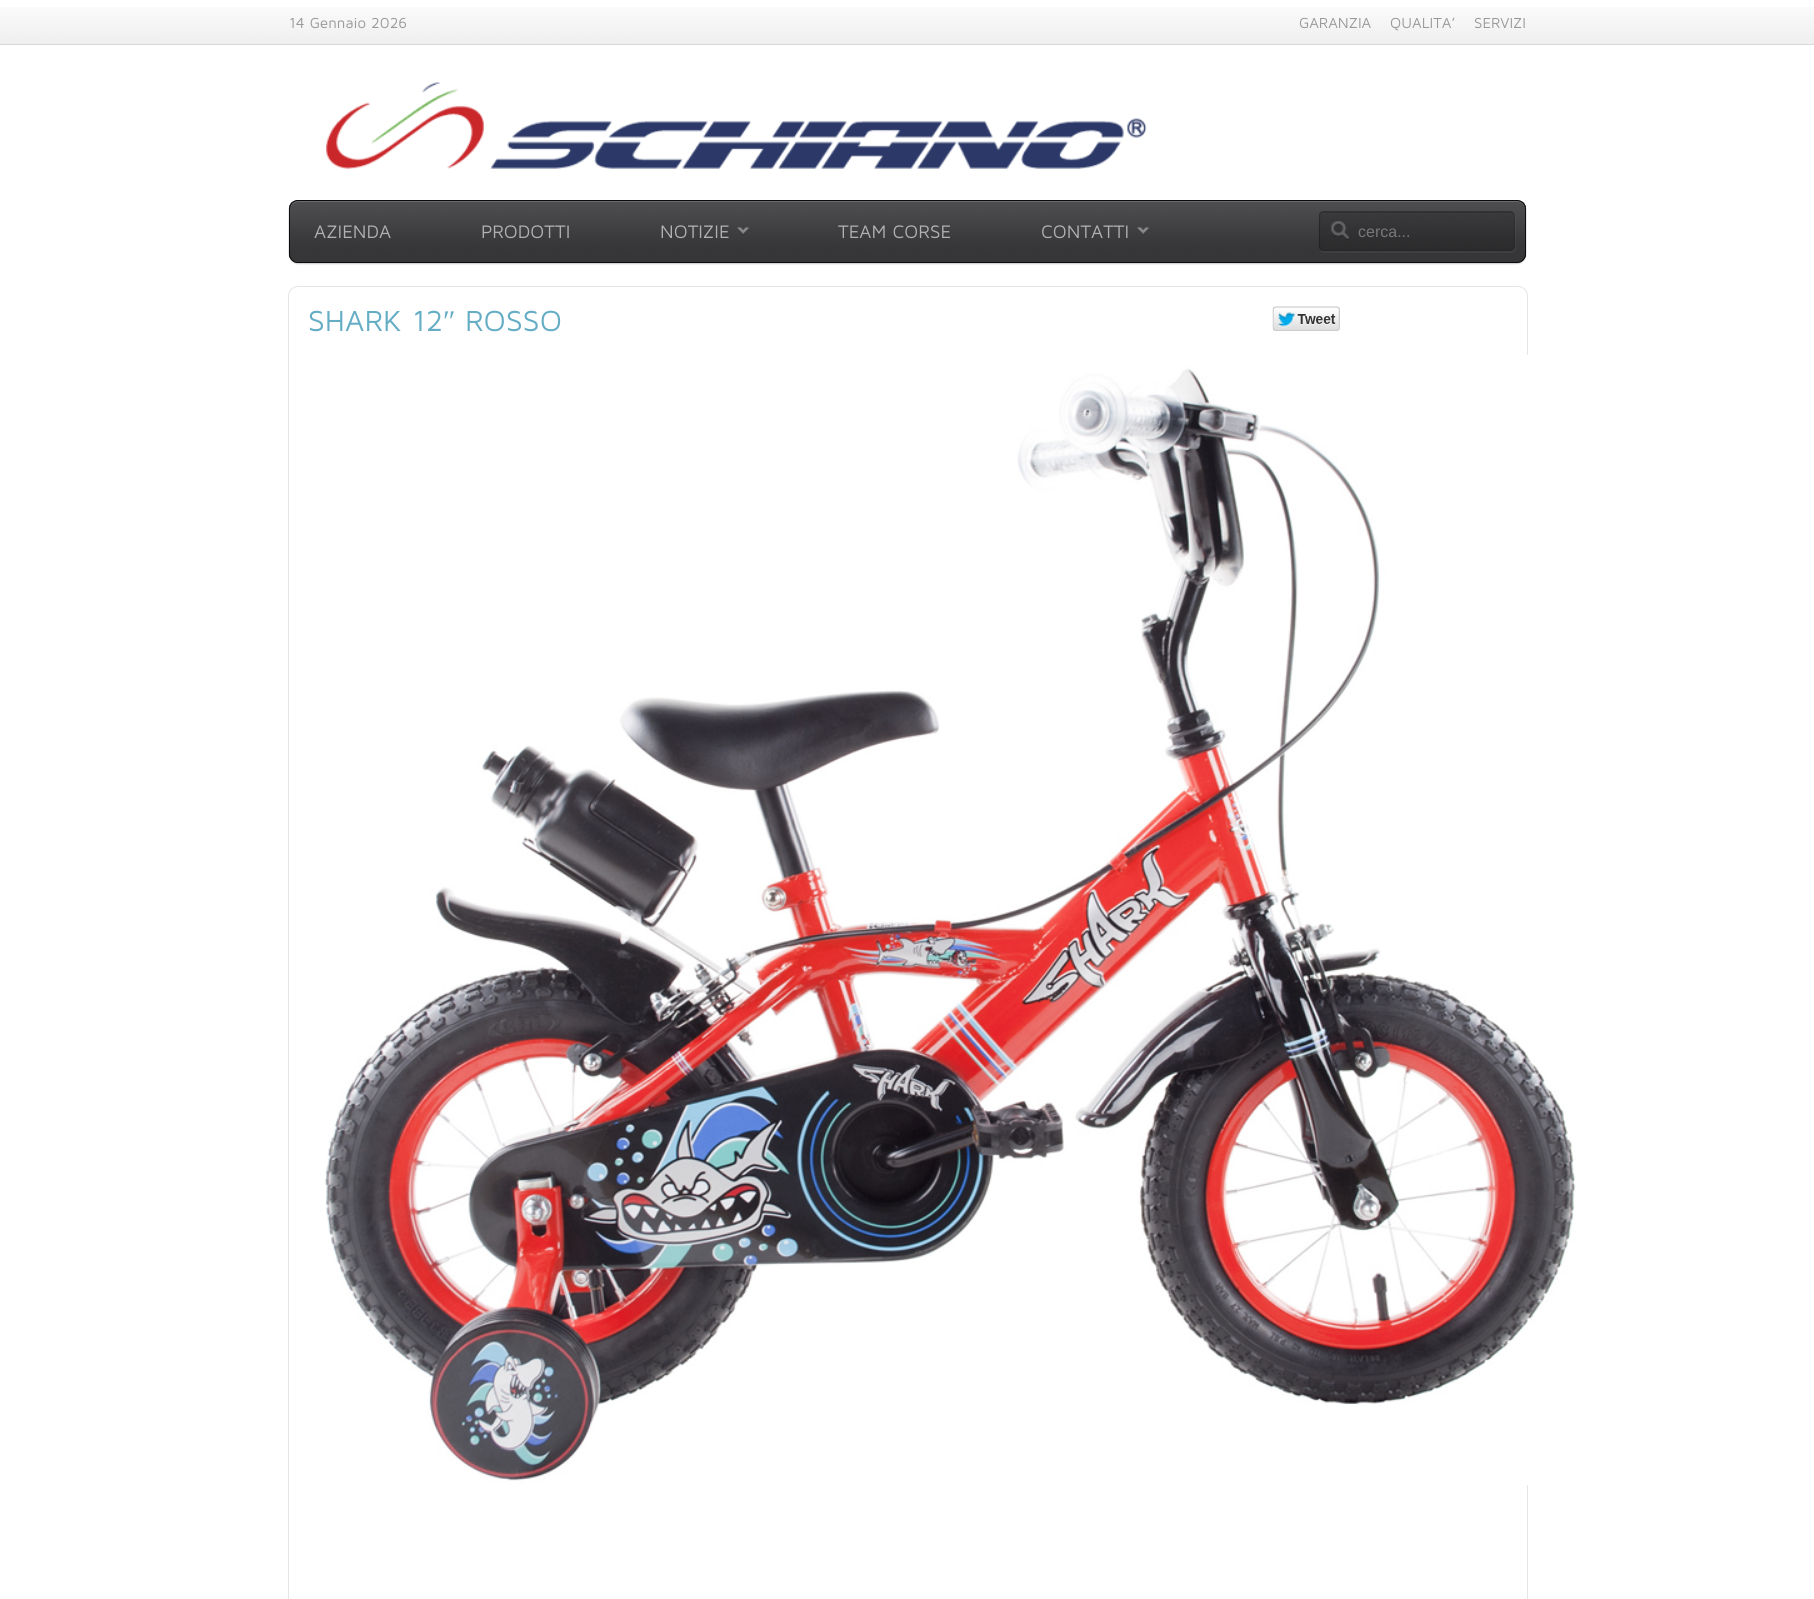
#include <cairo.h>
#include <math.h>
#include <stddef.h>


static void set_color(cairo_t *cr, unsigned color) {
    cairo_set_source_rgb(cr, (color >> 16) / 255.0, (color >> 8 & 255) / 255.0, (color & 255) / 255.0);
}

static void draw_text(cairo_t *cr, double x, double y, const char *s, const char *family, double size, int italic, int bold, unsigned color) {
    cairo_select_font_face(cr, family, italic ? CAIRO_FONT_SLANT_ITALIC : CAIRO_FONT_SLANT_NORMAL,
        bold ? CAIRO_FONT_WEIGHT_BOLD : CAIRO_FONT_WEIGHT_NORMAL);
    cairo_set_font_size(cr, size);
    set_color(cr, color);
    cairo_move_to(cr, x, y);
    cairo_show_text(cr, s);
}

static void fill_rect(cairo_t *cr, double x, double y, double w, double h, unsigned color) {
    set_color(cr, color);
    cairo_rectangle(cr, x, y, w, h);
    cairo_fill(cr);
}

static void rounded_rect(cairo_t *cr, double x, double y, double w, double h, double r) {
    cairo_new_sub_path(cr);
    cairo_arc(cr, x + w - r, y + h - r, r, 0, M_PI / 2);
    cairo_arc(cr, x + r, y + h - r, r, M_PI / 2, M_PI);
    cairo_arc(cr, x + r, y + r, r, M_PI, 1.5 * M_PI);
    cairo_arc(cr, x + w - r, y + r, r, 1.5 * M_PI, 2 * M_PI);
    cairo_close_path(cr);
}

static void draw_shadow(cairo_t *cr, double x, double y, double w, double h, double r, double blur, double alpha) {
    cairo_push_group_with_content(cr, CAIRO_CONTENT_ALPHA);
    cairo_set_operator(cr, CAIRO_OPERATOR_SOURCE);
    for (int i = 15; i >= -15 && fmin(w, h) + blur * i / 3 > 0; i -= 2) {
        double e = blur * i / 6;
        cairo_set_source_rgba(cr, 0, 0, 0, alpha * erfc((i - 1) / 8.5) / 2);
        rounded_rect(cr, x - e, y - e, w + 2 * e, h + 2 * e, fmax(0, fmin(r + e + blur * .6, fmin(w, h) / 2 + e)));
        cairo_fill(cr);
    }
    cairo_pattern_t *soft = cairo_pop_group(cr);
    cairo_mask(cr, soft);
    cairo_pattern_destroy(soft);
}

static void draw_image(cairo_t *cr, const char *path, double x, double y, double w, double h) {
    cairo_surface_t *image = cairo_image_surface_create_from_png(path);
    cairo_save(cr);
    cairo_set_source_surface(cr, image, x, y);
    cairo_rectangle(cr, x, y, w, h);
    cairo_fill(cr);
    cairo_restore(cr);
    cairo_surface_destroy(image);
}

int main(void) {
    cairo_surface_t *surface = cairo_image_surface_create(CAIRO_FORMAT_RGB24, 1814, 1599);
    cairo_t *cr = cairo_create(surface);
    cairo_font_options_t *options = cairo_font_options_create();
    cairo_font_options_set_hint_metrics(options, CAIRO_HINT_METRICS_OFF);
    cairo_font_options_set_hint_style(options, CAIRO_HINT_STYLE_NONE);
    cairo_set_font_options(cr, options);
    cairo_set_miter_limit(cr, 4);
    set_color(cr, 0xFFFFFF);
    cairo_paint(cr);
    draw_image(cr, "assets/img1.png", 0, 7, 1814, 37);
    fill_rect(cr, 0, 44, 1814, 1, 0xD8D8D8);
    draw_text(cr, 289, 28, "14 Gennaio 2026", "Maven Pro", 15, 0, 0, 0x99999B);
    draw_text(cr, 1299, 28, "GARANZIA", "Maven Pro", 15, 0, 0, 0x99999B);
    draw_text(cr, 1390, 28, "QUALITA’", "Maven Pro", 15, 0, 0, 0x99999B);
    draw_text(cr, 1474, 28, "SERVIZI", "Maven Pro", 15, 0, 0, 0x99999B);
    draw_image(cr, "assets/img2.png", 326, 82, 821, 87);
    set_color(cr, 0x000002);
    draw_shadow(cr, 289, 201, 1237, 63, 9, 0.5, 0.2);
    set_color(cr, 0x363638);
    rounded_rect(cr, 289, 200, 1237, 63, 9);
    cairo_fill(cr);
    draw_image(cr, "assets/img3.png", 288, 201, 1239, 57);
    cairo_set_source_rgba(cr, 0.992, 0.992, 1, 0.2);
    cairo_new_path(cr);
    cairo_move_to(cr, 298, 202);
    cairo_line_to(cr, 1518, 202);
    cairo_curve_to(cr, 1522, 202, 1525, 206, 1525, 210);
    cairo_curve_to(cr, 1525, 205, 1522, 201, 1517, 201);
    cairo_line_to(cr, 298, 201);
    cairo_curve_to(cr, 293, 201, 290, 205, 290, 210);
    cairo_curve_to(cr, 290, 206, 293, 202, 298, 202);
    cairo_close_path(cr);
    cairo_fill(cr);
    rounded_rect(cr, 289.5, 200.5, 1236, 62, 8.5);
    cairo_set_source_rgba(cr, 0, 0, 0.008, 0.8);
    cairo_set_line_width(cr, 1);
    cairo_stroke(cr);
    draw_text(cr, 314, 238, "AZIENDA", "Maven Pro", 18.75, 0, 0, 0xB1B1B3);
    draw_text(cr, 481, 238, "PRODOTTI", "Maven Pro", 18.75, 0, 0, 0xB1B1B3);
    draw_image(cr, "assets/img4.png", 737, 227, 12, 8);
    draw_text(cr, 660, 238, "NOTIZIE", "Maven Pro", 18.75, 0, 0, 0xB1B1B3);
    draw_text(cr, 838, 238, "TEAM CORSE", "Maven Pro", 18.75, 0, 0, 0xB1B1B3);
    draw_image(cr, "assets/img5.png", 1137, 227, 12, 8);
    draw_text(cr, 1041, 238, "CONTATTI", "Maven Pro", 18.75, 0, 0, 0xB1B1B3);
    cairo_set_source_rgba(cr, 0.992, 0.992, 1, 0.05);
    cairo_new_path(cr);
    cairo_move_to(cr, 1320, 250);
    cairo_curve_to(cr, 1321, 252, 1323, 253, 1325, 253);
    cairo_line_to(cr, 1511, 253);
    cairo_curve_to(cr, 1514, 253, 1516, 251, 1516, 248);
    cairo_line_to(cr, 1516, 218);
    cairo_curve_to(cr, 1516, 217, 1516, 216, 1515, 215);
    cairo_line_to(cr, 1515, 236);
    cairo_curve_to(cr, 1515, 240, 1517, 251, 1510, 251);
    cairo_line_to(cr, 1324, 251);
    cairo_close_path(cr);
    cairo_fill(cr);
    cairo_set_source_rgba(cr, 0, 0, 0.008, 0.2);
    rounded_rect(cr, 1319, 211, 196, 40, 5);
    cairo_fill(cr);
    draw_image(cr, "assets/img6.png", 1331, 221, 18, 19);
    cairo_new_path(cr);
    cairo_move_to(cr, 1513, 213);
    cairo_curve_to(cr, 1514, 214, 1514.5, 215, 1514.5, 216);
    cairo_line_to(cr, 1514.5, 246);
    cairo_curve_to(cr, 1514.5, 247.5, 1514, 248.5, 1513, 249.5);
    cairo_curve_to(cr, 1512.5, 250, 1511, 250.5, 1510, 250.5);
    cairo_line_to(cr, 1324, 250.5);
    cairo_curve_to(cr, 1322.5, 250.5, 1321.5, 250, 1320.5, 249.5);
    cairo_set_source_rgba(cr, 0, 0, 0.008, 0.12);
    cairo_set_line_width(cr, 1.2);
    cairo_stroke(cr);
    cairo_new_path(cr);
    cairo_move_to(cr, 1320.5, 249.5);
    cairo_curve_to(cr, 1320, 248.5, 1319.5, 247.5, 1319.5, 246);
    cairo_line_to(cr, 1319.5, 216);
    cairo_curve_to(cr, 1319.5, 215, 1320, 214, 1320.5, 213);
    cairo_curve_to(cr, 1321.5, 212.5, 1322.5, 212, 1324, 212);
    cairo_line_to(cr, 1510, 212);
    cairo_curve_to(cr, 1511, 212, 1512.5, 212.5, 1513, 213);
    cairo_set_source_rgba(cr, 0, 0, 0.008, 0.25);
    cairo_stroke(cr);
    draw_text(cr, 1358, 237, "cerca...", "Liberation Sans", 16, 0, 0, 0x777779);
    rounded_rect(cr, 288.5, 286.5, 1239, 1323, 9.5);
    set_color(cr, 0xE5E5E5);
    cairo_set_line_width(cr, 1);
    cairo_stroke(cr);
    rounded_rect(cr, 290.5, 289.5, 1234, 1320, 7.5);
    set_color(cr, 0xFFFFFF);
    cairo_set_line_width(cr, 3);
    cairo_stroke(cr);
    draw_text(cr, 308, 331, "SHARK 12", "Maven Pro", 30, 0, 0, 0x65ADC5);
    draw_text(cr, 443, 331, "″", "Liberation Serif", 30, 0, 0, 0x65ADC5);
    draw_text(cr, 465, 331, "ROSSO", "Maven Pro", 30, 0, 0, 0x65ADC5);
    draw_image(cr, "assets/img7.png", 1272, 306, 68, 25);
    draw_image(cr, "assets/img8.png", 325, 355, 1251, 1130);
    cairo_surface_write_to_png(surface, "output.png");
    cairo_font_options_destroy(options);
    cairo_destroy(cr);
    cairo_surface_destroy(surface);
    return 0;
}
